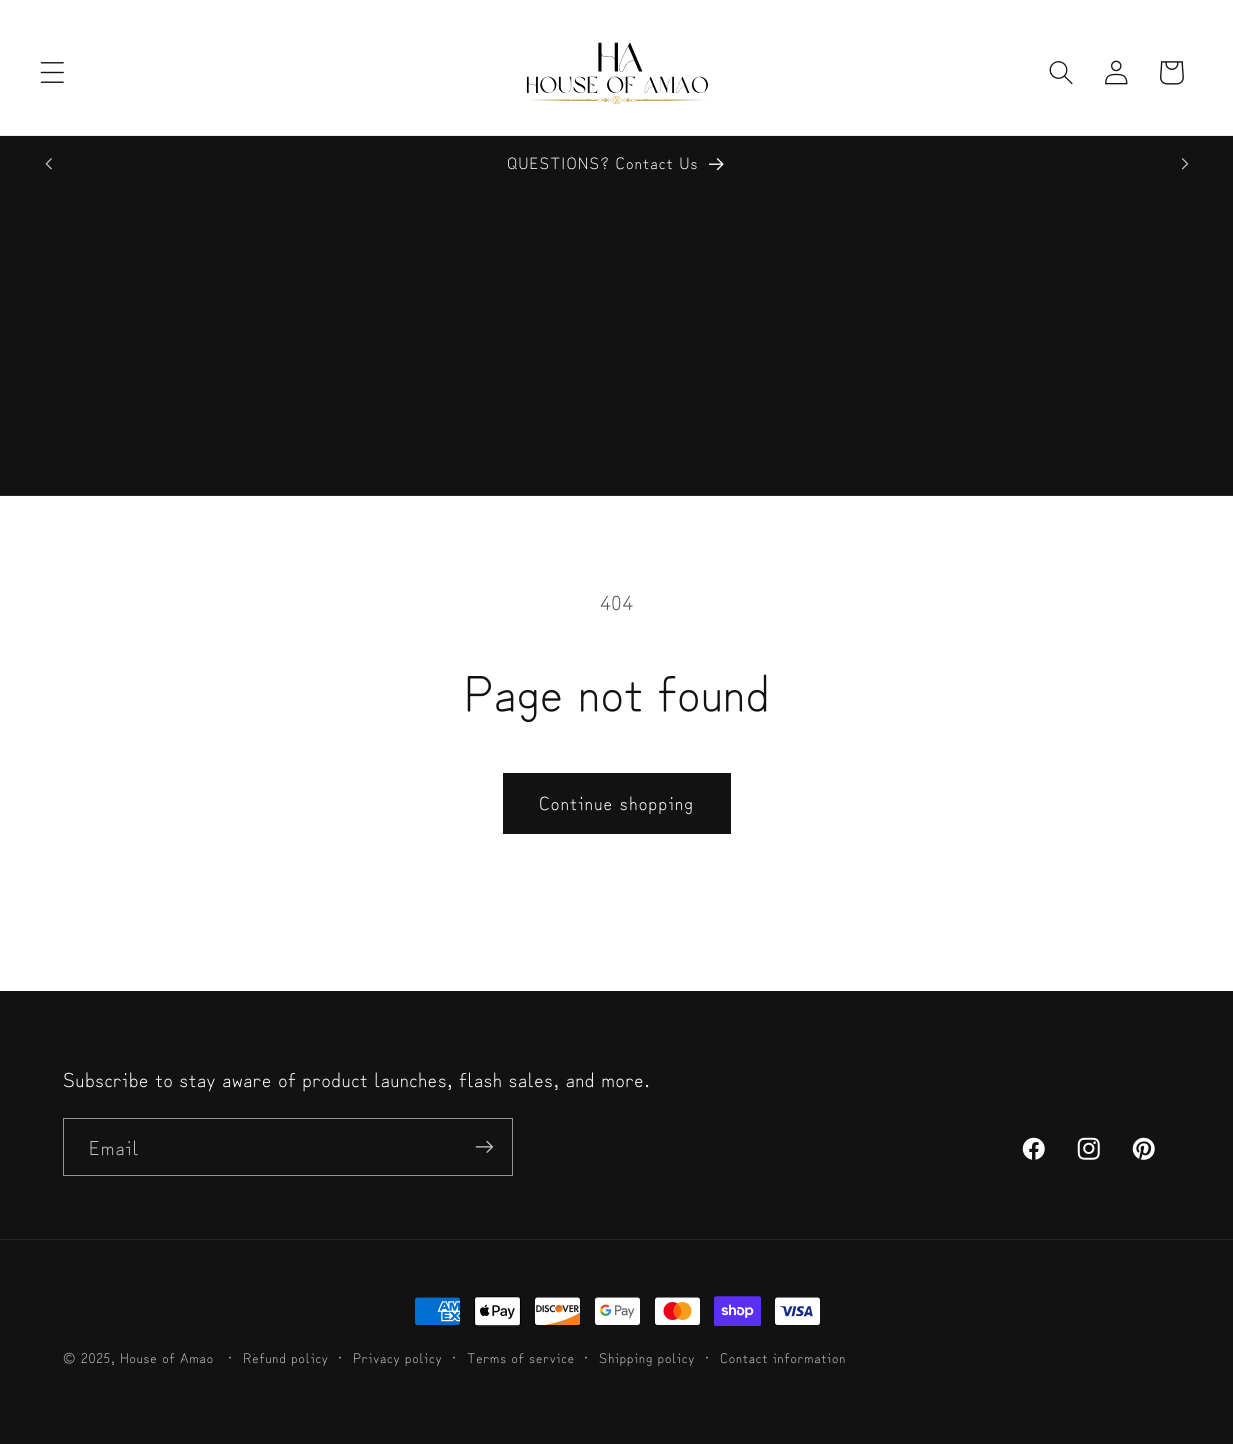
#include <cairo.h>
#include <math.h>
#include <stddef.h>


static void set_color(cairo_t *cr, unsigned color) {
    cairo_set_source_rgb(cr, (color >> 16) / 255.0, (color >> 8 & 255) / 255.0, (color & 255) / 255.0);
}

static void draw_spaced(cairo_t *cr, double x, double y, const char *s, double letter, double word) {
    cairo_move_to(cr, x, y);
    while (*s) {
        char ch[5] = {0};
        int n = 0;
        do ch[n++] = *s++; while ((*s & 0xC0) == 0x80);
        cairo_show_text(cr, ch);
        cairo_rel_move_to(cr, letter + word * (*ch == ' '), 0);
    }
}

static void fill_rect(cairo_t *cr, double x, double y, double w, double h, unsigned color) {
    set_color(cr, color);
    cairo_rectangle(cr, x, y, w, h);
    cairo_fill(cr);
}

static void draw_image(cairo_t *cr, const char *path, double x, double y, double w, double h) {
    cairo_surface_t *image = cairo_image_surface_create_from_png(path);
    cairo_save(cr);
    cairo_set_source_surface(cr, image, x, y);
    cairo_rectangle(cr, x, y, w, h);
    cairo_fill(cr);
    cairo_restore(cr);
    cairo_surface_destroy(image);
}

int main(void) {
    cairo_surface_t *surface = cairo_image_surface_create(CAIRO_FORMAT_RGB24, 1233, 1444);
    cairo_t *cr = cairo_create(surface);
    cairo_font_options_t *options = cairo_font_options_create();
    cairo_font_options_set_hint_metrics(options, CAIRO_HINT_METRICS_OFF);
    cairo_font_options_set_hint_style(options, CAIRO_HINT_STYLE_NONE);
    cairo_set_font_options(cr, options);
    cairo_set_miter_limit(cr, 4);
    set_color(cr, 0xFFFFFF);
    cairo_paint(cr);
    fill_rect(cr, 0, 135, 1233, 1, 0xECECEC);
    draw_image(cr, "assets/img1.png", 40, 62, 24, 21);
    draw_image(cr, "assets/img2.png", 526, 42, 182, 62);
    draw_image(cr, "assets/img3.png", 1049, 61, 24, 24);
    draw_image(cr, "assets/img4.png", 1105, 60, 23, 25);
    draw_image(cr, "assets/img5.png", 1160, 61, 24, 24);
    fill_rect(cr, 0, 136, 1233, 359, 0x121212);
    fill_rect(cr, 0, 495, 1233, 1, 0x252525);
    draw_image(cr, "assets/img6.png", 45, 158, 7, 12);
    cairo_select_font_face(cr, "Zen Kurenaido", CAIRO_FONT_SLANT_NORMAL, CAIRO_FONT_WEIGHT_NORMAL);
    cairo_set_font_size(cr, 16.25);
    set_color(cr, 0xFFFFFF);
    draw_spaced(cr, 507, 169, "QUESTIONS? Contact Us", 1.25, 0);
    draw_image(cr, "assets/img7.png", 709, 158, 15, 13);
    draw_image(cr, "assets/img8.png", 1181, 158, 7, 12);
    cairo_set_font_size(cr, 20);
    set_color(cr, 0x4D4D4D);
    draw_spaced(cr, 600, 610, "404", 0.75, 0);
    cairo_set_font_size(cr, 50);
    set_color(cr, 0x121212);
    draw_spaced(cr, 464, 711, "Page not found", 0.75, 0);
    fill_rect(cr, 503, 773, 228, 61, 0x121212);
    cairo_set_font_size(cr, 18.75);
    set_color(cr, 0xFFFFFF);
    draw_spaced(cr, 539, 810, "Continue shopping", 1.25, 0);
    fill_rect(cr, 0, 991, 1233, 453, 0x121212);
    cairo_set_font_size(cr, 20);
    set_color(cr, 0xFFFFFF);
    draw_spaced(cr, 63, 1087, "Subscribe to stay aware of product launches, flash sales, and more.", 0.75, 0);
    cairo_rectangle(cr, 63.5, 1118.5, 449, 57);
    set_color(cr, 0x949494);
    cairo_set_line_width(cr, 1);
    cairo_stroke(cr);
    set_color(cr, 0xC4C4C4);
    draw_spaced(cr, 89, 1155, "Email", 1.25, 0);
    draw_image(cr, "assets/img9.png", 475, 1140, 18, 13);
    draw_image(cr, "assets/img10.png", 1022, 1137, 23, 23);
    draw_image(cr, "assets/img11.png", 1077, 1137, 23, 23);
    draw_image(cr, "assets/img12.png", 1132, 1137, 23, 23);
    fill_rect(cr, 0, 1239, 1233, 1, 0x252525);
    draw_image(cr, "assets/img13.png", 415, 1297, 45, 28);
    draw_image(cr, "assets/img14.png", 474, 1296, 47, 30);
    draw_image(cr, "assets/img15.png", 535, 1297, 46, 28);
    draw_image(cr, "assets/img16.png", 595, 1297, 45, 28);
    draw_image(cr, "assets/img17.png", 655, 1297, 45, 28);
    draw_image(cr, "assets/img18.png", 714, 1296, 47, 30);
    draw_image(cr, "assets/img19.png", 775, 1297, 45, 28);
    cairo_set_font_size(cr, 13.75);
    set_color(cr, 0xC4C4C4);
    draw_spaced(cr, 63, 1363, "© 2025, House of Amao", 0.9, 0);
    cairo_set_font_size(cr, 15);
    draw_spaced(cr, 228, 1363, "·", 0.9, 0);
    cairo_set_font_size(cr, 13.75);
    draw_spaced(cr, 243, 1363, "Refund policy", 0.9, 0);
    cairo_set_font_size(cr, 15);
    draw_spaced(cr, 338, 1363, "·", 0.9, 0);
    cairo_set_font_size(cr, 13.75);
    draw_spaced(cr, 353, 1363, "Privacy policy", 0.9, 0);
    cairo_set_font_size(cr, 15);
    draw_spaced(cr, 452, 1363, "·", 0.9, 0);
    cairo_set_font_size(cr, 13.75);
    draw_spaced(cr, 467, 1363, "Terms of service", 0.9, 0);
    cairo_set_font_size(cr, 15);
    draw_spaced(cr, 584, 1363, "·", 0.9, 0);
    cairo_set_font_size(cr, 13.75);
    draw_spaced(cr, 599, 1363, "Shipping policy", 0.9, 0);
    cairo_set_font_size(cr, 15);
    draw_spaced(cr, 705, 1363, "·", 0.9, 0);
    cairo_set_font_size(cr, 13.75);
    draw_spaced(cr, 720, 1363, "Contact information", 0.9, 0);
    cairo_surface_write_to_png(surface, "output.png");
    cairo_font_options_destroy(options);
    cairo_destroy(cr);
    cairo_surface_destroy(surface);
    return 0;
}
